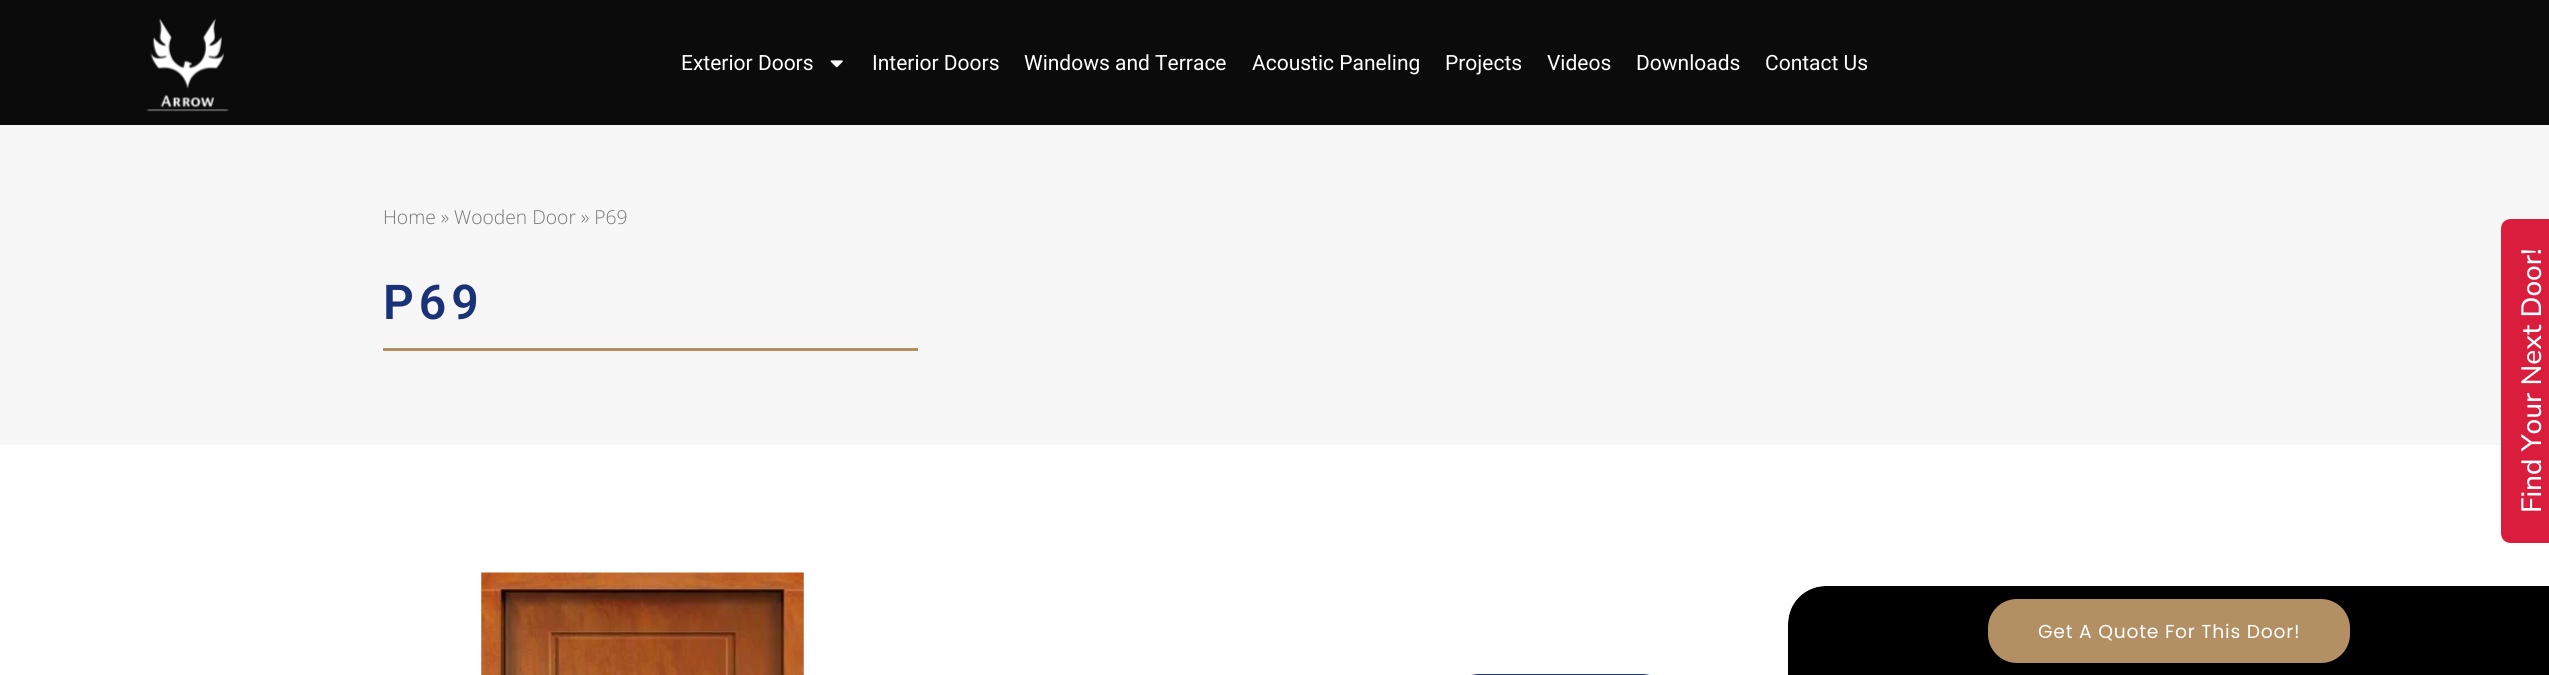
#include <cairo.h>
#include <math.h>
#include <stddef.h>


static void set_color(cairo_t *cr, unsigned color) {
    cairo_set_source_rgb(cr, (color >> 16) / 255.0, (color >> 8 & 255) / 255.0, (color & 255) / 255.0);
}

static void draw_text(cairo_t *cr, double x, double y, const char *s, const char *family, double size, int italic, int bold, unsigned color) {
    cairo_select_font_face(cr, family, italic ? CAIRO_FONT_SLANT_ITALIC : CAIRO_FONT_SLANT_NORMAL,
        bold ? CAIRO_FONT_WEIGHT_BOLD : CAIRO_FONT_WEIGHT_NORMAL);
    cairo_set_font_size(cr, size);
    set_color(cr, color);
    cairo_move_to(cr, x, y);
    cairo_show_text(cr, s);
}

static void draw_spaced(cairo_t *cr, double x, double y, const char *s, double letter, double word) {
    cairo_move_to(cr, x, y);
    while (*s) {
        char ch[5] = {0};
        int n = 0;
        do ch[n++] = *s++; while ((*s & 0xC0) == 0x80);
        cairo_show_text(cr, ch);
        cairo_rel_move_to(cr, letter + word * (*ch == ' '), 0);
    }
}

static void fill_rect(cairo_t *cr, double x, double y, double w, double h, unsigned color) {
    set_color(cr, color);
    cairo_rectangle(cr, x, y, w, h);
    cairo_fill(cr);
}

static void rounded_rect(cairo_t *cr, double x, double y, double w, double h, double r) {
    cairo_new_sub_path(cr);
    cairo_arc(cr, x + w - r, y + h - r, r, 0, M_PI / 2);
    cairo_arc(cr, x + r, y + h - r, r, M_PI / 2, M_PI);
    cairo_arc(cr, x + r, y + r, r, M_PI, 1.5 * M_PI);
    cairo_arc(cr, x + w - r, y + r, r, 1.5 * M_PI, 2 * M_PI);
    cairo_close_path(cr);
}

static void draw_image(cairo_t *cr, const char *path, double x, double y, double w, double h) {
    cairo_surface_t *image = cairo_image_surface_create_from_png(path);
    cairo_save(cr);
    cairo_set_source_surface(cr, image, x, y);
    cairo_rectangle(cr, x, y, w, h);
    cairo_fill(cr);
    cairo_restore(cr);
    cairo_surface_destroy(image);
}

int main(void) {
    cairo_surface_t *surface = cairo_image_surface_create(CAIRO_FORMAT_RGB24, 2549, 675);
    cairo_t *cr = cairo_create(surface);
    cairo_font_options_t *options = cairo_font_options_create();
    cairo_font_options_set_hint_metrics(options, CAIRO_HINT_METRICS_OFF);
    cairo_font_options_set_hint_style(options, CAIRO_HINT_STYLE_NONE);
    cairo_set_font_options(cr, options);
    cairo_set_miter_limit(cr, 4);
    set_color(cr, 0xFFFFFF);
    cairo_paint(cr);
    fill_rect(cr, 0, 0, 2549, 125, 0x0B0B0B);
    draw_image(cr, "assets/img1.png", 146, 18, 83, 94);
    draw_text(cr, 681, 70, "Exterior Doors", "Roboto", 21, 0, 0, 0xFFFFFF);
    draw_image(cr, "assets/img2.png", 830, 60, 13, 8);
    draw_text(cr, 872, 70, "Interior Doors", "Roboto", 21, 0, 0, 0xFFFFFF);
    draw_text(cr, 1024, 70, "Windows and Terrace", "Roboto", 21, 0, 0, 0xFFFFFF);
    draw_text(cr, 1252, 70, "Acoustic Paneling", "Roboto", 21, 0, 0, 0xFFFFFF);
    draw_text(cr, 1445, 70, "Projects", "Roboto", 21, 0, 0, 0xFFFFFF);
    draw_text(cr, 1547, 70, "Videos", "Roboto", 21, 0, 0, 0xFFFFFF);
    draw_text(cr, 1636, 70, "Downloads", "Roboto", 21, 0, 0, 0xFFFFFF);
    draw_text(cr, 1765, 70, "Contact Us", "Roboto", 21, 0, 0, 0xFFFFFF);
    fill_rect(cr, 0, 125, 2549, 320, 0xF7F7F7);
    draw_text(cr, 383, 224, "Home » Wooden Door » P69", "Open Sans Light", 19.25, 0, 0, 0x767676);
    cairo_select_font_face(cr, "Roboto SemiBold", CAIRO_FONT_SLANT_NORMAL, CAIRO_FONT_WEIGHT_NORMAL);
    cairo_set_font_size(cr, 48);
    set_color(cr, 0x1A3378);
    draw_spaced(cr, 383, 319, "P69", 5, 0);
    fill_rect(cr, 383, 348, 535, 3, 0xB29063);
    draw_image(cr, "assets/img3.png", 481, 572, 323, 103);
    set_color(cr, 0x1A3378);
    rounded_rect(cr, 1450, 674, 221, 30, 29);
    cairo_fill(cr);
    set_color(cr, 0x000000);
    cairo_new_path(cr);
    cairo_move_to(cr, 1826, 586);
    cairo_line_to(cr, 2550, 586);
    cairo_line_to(cr, 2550, 675);
    cairo_line_to(cr, 1788, 675);
    cairo_line_to(cr, 1788, 624);
    cairo_curve_to(cr, 1788, 603, 1805, 586, 1826, 586);
    cairo_close_path(cr);
    cairo_fill(cr);
    set_color(cr, 0xFFFFFF);
    cairo_set_fill_rule(cr, CAIRO_FILL_RULE_EVEN_ODD);
    cairo_new_path(cr);
    cairo_move_to(cr, 1825, 584);
    cairo_line_to(cr, 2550, 584);
    cairo_line_to(cr, 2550, 675);
    cairo_line_to(cr, 1785, 675);
    cairo_line_to(cr, 1785, 624);
    cairo_curve_to(cr, 1785, 602, 1803, 584, 1825, 584);
    cairo_close_path(cr);
    cairo_move_to(cr, 1825, 586);
    cairo_line_to(cr, 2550, 586);
    cairo_line_to(cr, 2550, 675);
    cairo_line_to(cr, 1788, 675);
    cairo_line_to(cr, 1788, 624);
    cairo_curve_to(cr, 1788, 603, 1804, 586, 1825, 586);
    cairo_close_path(cr);
    cairo_fill(cr);
    set_color(cr, 0xB29063);
    rounded_rect(cr, 1988, 599, 362, 64, 29);
    cairo_fill(cr);
    cairo_select_font_face(cr, "Poppins", CAIRO_FONT_SLANT_NORMAL, CAIRO_FONT_WEIGHT_NORMAL);
    cairo_set_font_size(cr, 18.75);
    set_color(cr, 0xFFFFFF);
    draw_spaced(cr, 2038, 638, "Get A Quote For This Door!", 0.75, 0);
    set_color(cr, 0xDB1D3D);
    cairo_set_fill_rule(cr, CAIRO_FILL_RULE_WINDING);
    cairo_new_path(cr);
    cairo_move_to(cr, 2501, 533);
    cairo_line_to(cr, 2501, 229);
    cairo_curve_to(cr, 2501, 223, 2505, 219, 2511, 219);
    cairo_line_to(cr, 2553, 219);
    cairo_curve_to(cr, 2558, 219, 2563, 223, 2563, 229);
    cairo_line_to(cr, 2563, 533);
    cairo_curve_to(cr, 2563, 539, 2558, 543, 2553, 543);
    cairo_line_to(cr, 2511, 543);
    cairo_curve_to(cr, 2505, 543, 2501, 539, 2501, 533);
    cairo_close_path(cr);
    cairo_fill(cr);
    cairo_save(cr);
    cairo_translate(cr, 2541, 513);
    cairo_rotate(cr, -90 * M_PI / 180);
    draw_text(cr, 0, 0, "Find Your Next Door!", "Nunito Sans Medium", 28, 0, 0, 0xFFFFFF);
    cairo_restore(cr);
    cairo_surface_write_to_png(surface, "output.png");
    cairo_font_options_destroy(options);
    cairo_destroy(cr);
    cairo_surface_destroy(surface);
    return 0;
}
